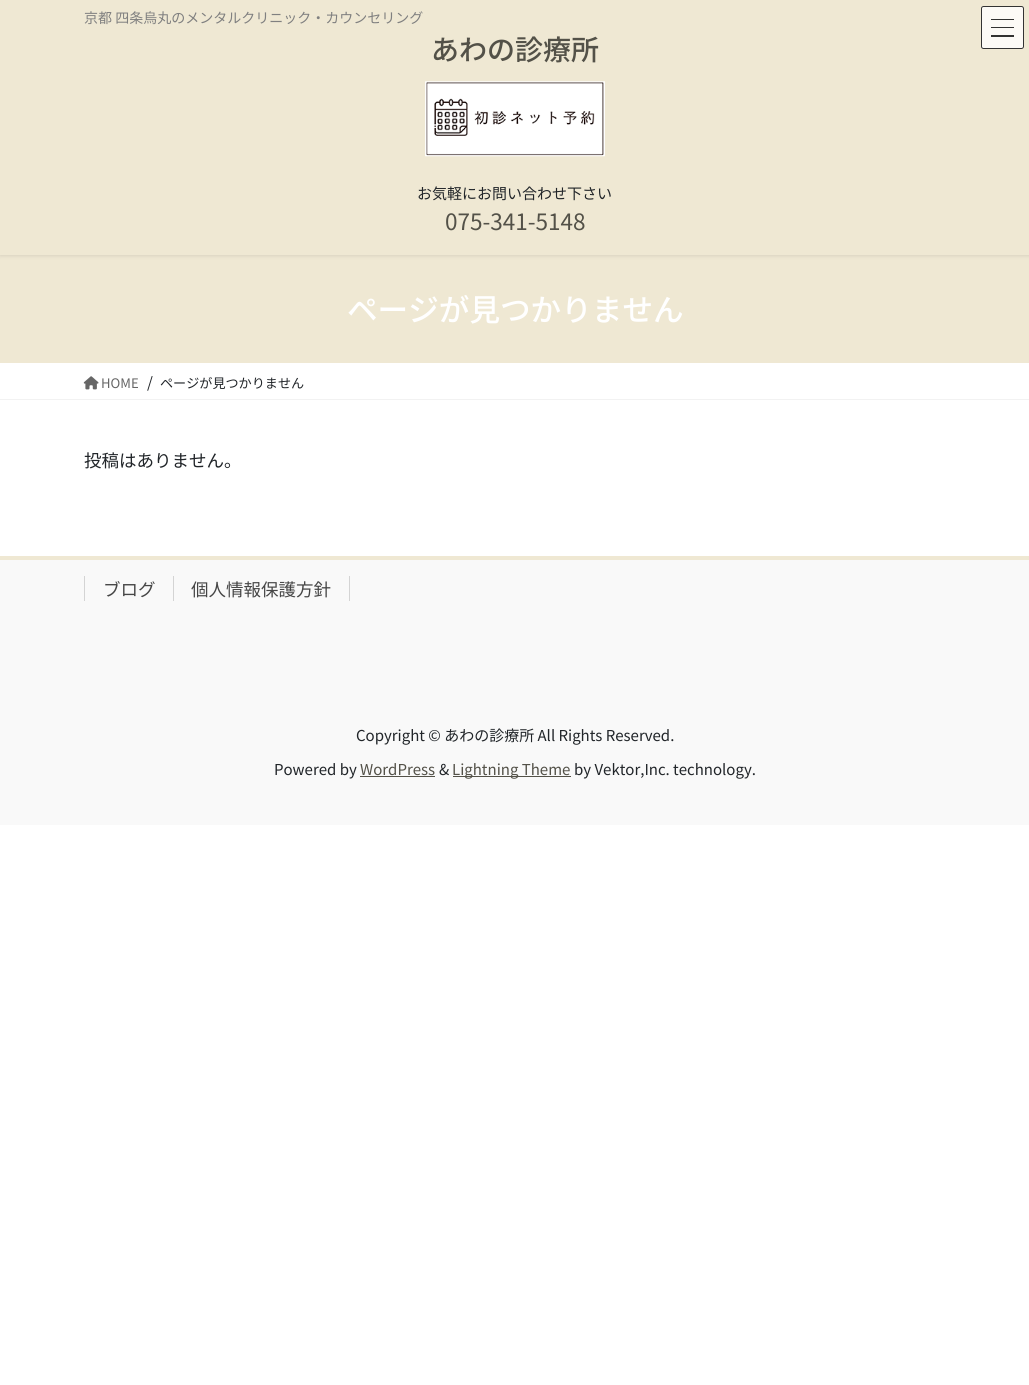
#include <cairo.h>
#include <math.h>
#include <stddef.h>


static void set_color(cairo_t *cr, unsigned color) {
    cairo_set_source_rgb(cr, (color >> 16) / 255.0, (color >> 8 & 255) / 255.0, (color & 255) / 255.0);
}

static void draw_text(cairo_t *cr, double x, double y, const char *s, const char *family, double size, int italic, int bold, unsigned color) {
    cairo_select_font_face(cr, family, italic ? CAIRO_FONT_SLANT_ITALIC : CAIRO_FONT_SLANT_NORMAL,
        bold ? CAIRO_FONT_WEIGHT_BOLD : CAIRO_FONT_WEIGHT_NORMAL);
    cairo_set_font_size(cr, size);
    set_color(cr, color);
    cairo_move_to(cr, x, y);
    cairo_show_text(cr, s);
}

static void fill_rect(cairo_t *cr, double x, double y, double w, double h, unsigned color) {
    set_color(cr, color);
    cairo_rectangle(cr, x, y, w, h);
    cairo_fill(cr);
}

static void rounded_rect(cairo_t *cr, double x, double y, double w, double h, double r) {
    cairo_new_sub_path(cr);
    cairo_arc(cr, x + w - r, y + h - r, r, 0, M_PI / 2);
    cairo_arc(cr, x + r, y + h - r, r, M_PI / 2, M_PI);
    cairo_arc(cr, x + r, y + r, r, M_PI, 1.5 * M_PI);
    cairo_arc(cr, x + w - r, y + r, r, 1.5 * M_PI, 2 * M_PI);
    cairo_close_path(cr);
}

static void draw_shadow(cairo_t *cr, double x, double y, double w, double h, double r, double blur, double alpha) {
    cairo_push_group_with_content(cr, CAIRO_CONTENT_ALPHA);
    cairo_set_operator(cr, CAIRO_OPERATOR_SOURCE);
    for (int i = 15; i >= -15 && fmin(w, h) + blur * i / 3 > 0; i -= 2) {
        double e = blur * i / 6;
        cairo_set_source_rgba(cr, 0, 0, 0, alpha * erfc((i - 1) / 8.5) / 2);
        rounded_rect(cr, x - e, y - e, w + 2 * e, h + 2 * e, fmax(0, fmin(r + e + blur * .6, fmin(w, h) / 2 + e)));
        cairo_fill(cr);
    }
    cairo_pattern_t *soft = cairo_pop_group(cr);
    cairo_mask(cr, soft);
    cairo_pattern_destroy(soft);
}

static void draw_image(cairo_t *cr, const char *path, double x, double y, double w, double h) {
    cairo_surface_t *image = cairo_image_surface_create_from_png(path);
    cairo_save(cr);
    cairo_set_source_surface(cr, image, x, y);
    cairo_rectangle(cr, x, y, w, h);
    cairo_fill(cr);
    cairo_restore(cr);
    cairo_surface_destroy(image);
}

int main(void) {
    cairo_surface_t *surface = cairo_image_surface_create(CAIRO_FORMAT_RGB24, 1029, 1385);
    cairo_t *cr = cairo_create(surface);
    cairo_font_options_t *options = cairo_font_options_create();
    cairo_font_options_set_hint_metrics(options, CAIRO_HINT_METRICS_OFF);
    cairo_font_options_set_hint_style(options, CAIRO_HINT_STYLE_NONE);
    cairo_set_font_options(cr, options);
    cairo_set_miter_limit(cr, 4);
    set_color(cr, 0xFFFFFF);
    cairo_paint(cr);
    fill_rect(cr, 0, 255, 1029, 108, 0xEFE8D3);
    set_color(cr, 0x000000);
    draw_shadow(cr, 0, 1, 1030, 255, 0, 2, 0.1);
    fill_rect(cr, 0, 0, 1029, 255, 0xEFE8D3);
    draw_text(cr, 84, 23, "京都 四条烏丸のメンタルクリニック・カウンセリング", "Noto Sans JP", 14, 0, 0, 0x808080);
    draw_text(cr, 431, 60, "あわの診療所", "Noto Sans JP Medium", 28, 0, 0, 0x535148);
    draw_image(cr, "assets/img1.png", 425, 81, 180, 76);
    draw_text(cr, 417, 199, "お気軽にお問い合わせ下さい", "Noto Sans JP", 15, 0, 0, 0x212529);
    draw_text(cr, 445, 230, "075-341-5148", "Noto Sans JP", 22.5, 0, 0, 0x535148);
    set_color(cr, 0xFCFAF6);
    rounded_rect(cr, 981, 6, 43, 43, 2.5);
    cairo_fill(cr);
    fill_rect(cr, 991, 19, 23, 1, 0x323231);
    fill_rect(cr, 991, 27, 23, 1, 0x323231);
    fill_rect(cr, 991, 35, 23, 2, 0x323231);
    rounded_rect(cr, 981.5, 6.5, 42, 42, 2);
    set_color(cr, 0x333333);
    cairo_set_line_width(cr, 1);
    cairo_stroke(cr);
    draw_text(cr, 347, 321, "ページが見つかりません", "Noto Sans JP Medium", 30.6, 0, 0, 0xFFFFFF);
    fill_rect(cr, 0, 399, 1029, 1, 0xF2F2F2);
    draw_image(cr, "assets/img2.png", 83, 376, 16, 14);
    draw_text(cr, 101, 388, "HOME", "Noto Sans JP", 13.1, 0, 0, 0x666666);
    draw_text(cr, 147, 388, "/", "Noto Sans JP", 15, 0, 0, 0x212529);
    draw_text(cr, 160, 388, "ページが見つかりません", "Noto Sans JP", 13.1, 0, 0, 0x212529);
    draw_text(cr, 84, 467, "投稿はありません。", "Noto Sans JP", 17.5, 0, 0, 0x212529);
    fill_rect(cr, 0, 560, 1029, 265, 0xF9F9F9);
    fill_rect(cr, 0, 556, 1029, 4, 0xEFE8D3);
    draw_text(cr, 103, 596, "ブログ", "Noto Sans JP", 17.5, 0, 0, 0x464646);
    fill_rect(cr, 84, 576, 1, 25, 0xD4D4D4);
    draw_text(cr, 191, 596, "個人情報保護方針", "Noto Sans JP", 17.5, 0, 0, 0x464646);
    fill_rect(cr, 349, 576, 1, 25, 0xD4D4D4);
    fill_rect(cr, 173, 576, 1, 25, 0xD4D4D4);
    draw_text(cr, 356, 741, "Copyright © あわの診療所 All Rights Reserved.", "Noto Sans JP", 15, 0, 0, 0x212529);
    draw_text(cr, 274, 775, "Powered by", "Noto Sans JP", 15, 0, 0, 0x212529);
    draw_text(cr, 360, 775, "WordPress", "Noto Sans JP", 15, 0, 0, 0x535148);
    fill_rect(cr, 360, 776, 75, 1, 0x535148);
    draw_text(cr, 439, 775, "&", "Noto Sans JP", 15, 0, 0, 0x212529);
    fill_rect(cr, 453, 776, 118, 1, 0x535148);
    draw_text(cr, 452, 775, "Lightning Theme", "Noto Sans JP", 15, 0, 0, 0x535148);
    draw_text(cr, 574, 775, "by Vektor,Inc. technology.", "Noto Sans JP", 15, 0, 0, 0x212529);
    cairo_surface_write_to_png(surface, "output.png");
    cairo_font_options_destroy(options);
    cairo_destroy(cr);
    cairo_surface_destroy(surface);
    return 0;
}
